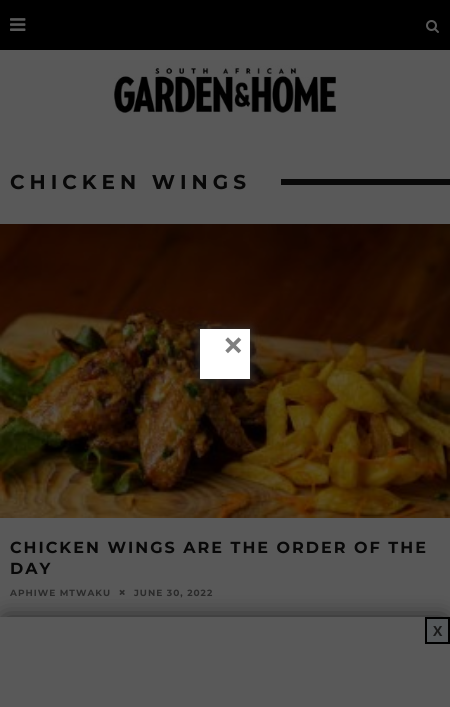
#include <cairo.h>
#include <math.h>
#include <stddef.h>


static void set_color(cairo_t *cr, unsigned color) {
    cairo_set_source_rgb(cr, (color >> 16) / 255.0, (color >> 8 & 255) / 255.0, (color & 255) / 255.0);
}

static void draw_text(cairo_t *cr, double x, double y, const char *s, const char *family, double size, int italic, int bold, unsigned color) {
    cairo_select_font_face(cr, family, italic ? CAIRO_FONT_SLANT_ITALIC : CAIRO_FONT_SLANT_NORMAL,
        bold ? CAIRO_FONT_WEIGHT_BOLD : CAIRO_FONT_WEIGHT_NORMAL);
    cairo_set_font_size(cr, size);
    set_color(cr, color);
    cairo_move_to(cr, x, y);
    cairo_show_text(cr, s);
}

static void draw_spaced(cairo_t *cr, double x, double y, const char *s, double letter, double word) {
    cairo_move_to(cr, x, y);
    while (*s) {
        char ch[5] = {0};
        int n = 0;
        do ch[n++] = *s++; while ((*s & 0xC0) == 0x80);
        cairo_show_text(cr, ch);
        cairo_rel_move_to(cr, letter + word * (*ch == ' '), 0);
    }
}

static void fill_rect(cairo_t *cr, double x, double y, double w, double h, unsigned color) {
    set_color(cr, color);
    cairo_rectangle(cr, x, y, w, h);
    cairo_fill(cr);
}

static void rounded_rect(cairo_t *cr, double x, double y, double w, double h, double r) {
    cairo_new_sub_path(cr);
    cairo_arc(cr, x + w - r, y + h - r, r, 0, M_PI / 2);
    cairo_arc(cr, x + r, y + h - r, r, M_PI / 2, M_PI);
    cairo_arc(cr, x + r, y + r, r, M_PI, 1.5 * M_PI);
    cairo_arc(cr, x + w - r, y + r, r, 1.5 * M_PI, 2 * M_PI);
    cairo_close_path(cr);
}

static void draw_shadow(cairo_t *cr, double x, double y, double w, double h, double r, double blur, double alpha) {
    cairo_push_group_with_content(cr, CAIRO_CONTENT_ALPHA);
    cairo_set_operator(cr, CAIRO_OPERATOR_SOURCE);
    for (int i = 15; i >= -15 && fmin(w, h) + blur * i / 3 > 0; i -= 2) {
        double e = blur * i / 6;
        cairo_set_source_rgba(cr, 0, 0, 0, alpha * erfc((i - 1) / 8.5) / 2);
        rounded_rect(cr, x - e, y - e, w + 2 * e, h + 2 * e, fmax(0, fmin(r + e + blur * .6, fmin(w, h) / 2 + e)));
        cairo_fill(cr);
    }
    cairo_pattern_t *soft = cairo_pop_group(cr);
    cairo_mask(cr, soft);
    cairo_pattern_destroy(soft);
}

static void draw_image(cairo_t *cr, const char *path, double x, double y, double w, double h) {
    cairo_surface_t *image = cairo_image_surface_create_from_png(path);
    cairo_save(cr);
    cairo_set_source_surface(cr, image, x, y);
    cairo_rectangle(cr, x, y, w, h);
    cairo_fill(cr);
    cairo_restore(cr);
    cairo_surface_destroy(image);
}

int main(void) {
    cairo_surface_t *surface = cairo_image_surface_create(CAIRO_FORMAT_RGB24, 450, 707);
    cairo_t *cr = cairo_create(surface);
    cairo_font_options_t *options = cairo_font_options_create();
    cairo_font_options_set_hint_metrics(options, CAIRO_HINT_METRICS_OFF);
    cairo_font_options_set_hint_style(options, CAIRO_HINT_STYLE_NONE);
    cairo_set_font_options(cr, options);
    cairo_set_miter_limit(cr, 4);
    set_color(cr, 0x595959);
    cairo_paint(cr);
    fill_rect(cr, 0, 0, 450, 50, 0x000000);
    draw_image(cr, "assets/img1.png", 10, 18, 16, 13);
    draw_image(cr, "assets/img2.png", 426, 20, 13, 13);
    draw_image(cr, "assets/img3.png", 113, 65, 223, 49);
    cairo_select_font_face(cr, "Montserrat", CAIRO_FONT_SLANT_NORMAL, CAIRO_FONT_WEIGHT_BOLD);
    cairo_set_font_size(cr, 20);
    set_color(cr, 0x080808);
    draw_spaced(cr, 10, 189, "CHICKEN WINGS", 5, 0);
    fill_rect(cr, 281, 179, 169, 6, 0x080808);
    draw_image(cr, "assets/img4.png", 0, 224, 450, 294);
    cairo_set_font_size(cr, 16);
    draw_spaced(cr, 10, 553, "CHICKEN WINGS ARE THE ORDER OF THE", 2, 0);
    draw_spaced(cr, 10, 574, "DAY", 2, 0);
    cairo_set_font_size(cr, 9);
    set_color(cr, 0x2A2A2A);
    draw_spaced(cr, 10, 596, "APHIWE MTWAKU", 1, 0);
    draw_image(cr, "assets/img5.png", 119, 589, 6, 6);
    draw_spaced(cr, 134, 596, "JUNE 30, 2022", 1, 0);
    set_color(cr, 0x333333);
    draw_shadow(cr, 199, 328, 52, 52, 0, 5, 1);
    fill_rect(cr, 200, 329, 50, 50, 0xFFFFFF);
    draw_text(cr, 223, 358, "×", "Open Sans", 36, 0, 1, 0x808080);
    set_color(cr, 0x000000);
    draw_shadow(cr, 6, 621, 438, 78, 0, 12, 0.75);
    fill_rect(cr, 0, 617, 450, 90, 0x595959);
    set_color(cr, 0x545759);
    cairo_rectangle(cr, 426, 618, 23, 25);
    cairo_fill_preserve(cr);
    set_color(cr, 0x000000);
    cairo_stroke(cr);
    draw_text(cr, 433, 636, "X", "Open Sans", 14, 0, 1, 0x191919);
    cairo_surface_write_to_png(surface, "output.png");
    cairo_font_options_destroy(options);
    cairo_destroy(cr);
    cairo_surface_destroy(surface);
    return 0;
}
